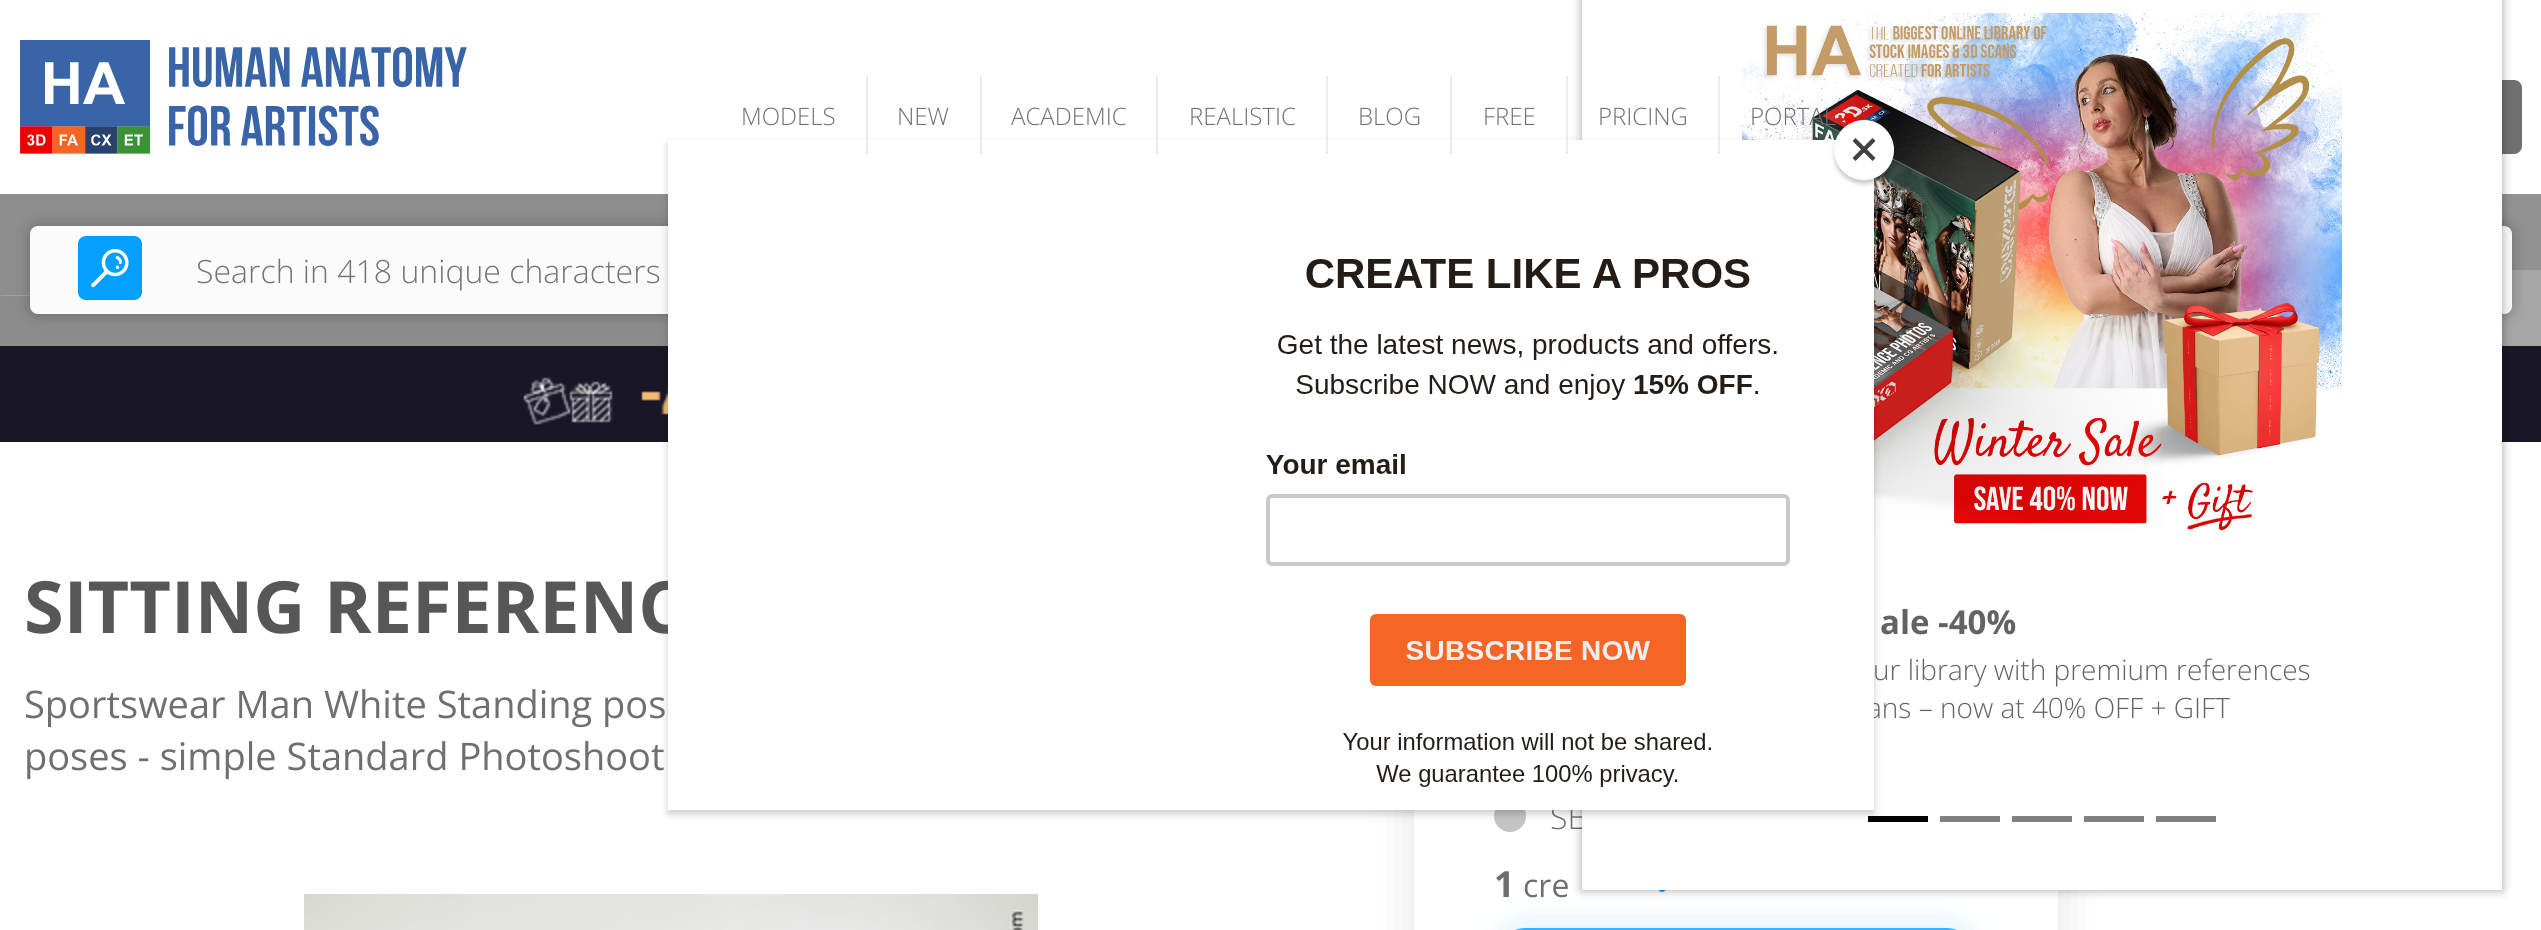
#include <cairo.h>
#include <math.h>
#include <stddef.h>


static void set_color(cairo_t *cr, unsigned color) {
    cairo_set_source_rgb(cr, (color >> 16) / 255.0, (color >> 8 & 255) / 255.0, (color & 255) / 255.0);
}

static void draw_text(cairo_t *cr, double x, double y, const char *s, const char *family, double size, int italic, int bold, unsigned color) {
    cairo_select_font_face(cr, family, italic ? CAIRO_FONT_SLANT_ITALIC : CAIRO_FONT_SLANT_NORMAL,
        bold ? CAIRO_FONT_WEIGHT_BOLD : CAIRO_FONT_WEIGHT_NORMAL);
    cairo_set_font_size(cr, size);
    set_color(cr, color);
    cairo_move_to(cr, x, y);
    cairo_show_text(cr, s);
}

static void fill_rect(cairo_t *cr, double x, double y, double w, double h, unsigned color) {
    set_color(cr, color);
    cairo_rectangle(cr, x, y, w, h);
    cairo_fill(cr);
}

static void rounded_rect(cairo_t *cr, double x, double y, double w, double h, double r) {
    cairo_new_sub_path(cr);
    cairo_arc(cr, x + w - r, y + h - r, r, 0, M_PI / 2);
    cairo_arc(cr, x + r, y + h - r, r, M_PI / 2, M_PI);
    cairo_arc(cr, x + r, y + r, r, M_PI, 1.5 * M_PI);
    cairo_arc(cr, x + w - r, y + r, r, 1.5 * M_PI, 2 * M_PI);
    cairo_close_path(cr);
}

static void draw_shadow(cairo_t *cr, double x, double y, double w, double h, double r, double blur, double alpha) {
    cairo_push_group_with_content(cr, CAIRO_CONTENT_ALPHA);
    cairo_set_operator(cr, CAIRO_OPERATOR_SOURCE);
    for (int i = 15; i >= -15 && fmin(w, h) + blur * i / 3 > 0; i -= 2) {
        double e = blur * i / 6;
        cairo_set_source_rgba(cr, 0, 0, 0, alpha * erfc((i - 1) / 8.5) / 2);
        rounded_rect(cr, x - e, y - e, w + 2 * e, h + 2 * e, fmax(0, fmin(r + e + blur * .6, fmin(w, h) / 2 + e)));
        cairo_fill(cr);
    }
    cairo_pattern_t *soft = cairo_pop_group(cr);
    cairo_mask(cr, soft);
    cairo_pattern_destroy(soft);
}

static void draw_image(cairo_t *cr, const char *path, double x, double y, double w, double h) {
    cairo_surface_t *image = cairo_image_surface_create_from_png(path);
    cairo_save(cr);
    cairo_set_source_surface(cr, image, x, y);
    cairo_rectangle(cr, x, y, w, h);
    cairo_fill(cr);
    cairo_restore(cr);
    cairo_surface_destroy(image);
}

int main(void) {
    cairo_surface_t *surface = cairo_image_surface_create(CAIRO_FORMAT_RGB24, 2541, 930);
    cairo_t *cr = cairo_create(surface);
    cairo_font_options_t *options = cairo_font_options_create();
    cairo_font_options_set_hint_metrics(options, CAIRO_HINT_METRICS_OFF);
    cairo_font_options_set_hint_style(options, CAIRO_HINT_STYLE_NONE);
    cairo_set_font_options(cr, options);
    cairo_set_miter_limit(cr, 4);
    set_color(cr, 0xFFFFFF);
    cairo_paint(cr);
    draw_image(cr, "assets/img1.png", 20, 40, 447, 114);
    draw_text(cr, 741, 125, "MODELS", "Open Sans Light", 24, 0, 0, 0x6F6F6F);
    draw_image(cr, "assets/img2.png", 0, 194, 2541, 152);
    set_color(cr, 0x000000);
    draw_shadow(cr, 30, 226, 2482, 88, 8, 8, 0.25);
    set_color(cr, 0xFBFBFB);
    rounded_rect(cr, 30, 226, 2482, 88, 8);
    cairo_fill(cr);
    fill_rect(cr, 0, 346, 2541, 96, 0x191627);
    draw_image(cr, "assets/img5.png", 523, 365, 145, 62);
    set_color(cr, 0x575757);
    draw_shadow(cr, 1414, 570, 644, 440, 8, 24, 0.16);
    fill_rect(cr, 1414, 810, 644, 120, 0xFFFFFF);
    set_color(cr, 0xC4C4C4);
    cairo_arc(cr, 1510, 816, 16, 0, 2 * M_PI);
    cairo_fill(cr);
    set_color(cr, 0x6F6F6F);
    rounded_rect(cr, 2356, 80, 166, 74, 8);
    cairo_fill(cr);
    draw_text(cr, 1550, 829, "SE", "Open Sans Light", 32, 0, 0, 0x6F6F6F);
    set_color(cr, 0x059FFF);
    cairo_new_path(cr);
    cairo_arc(cr, 1662, 888, 4, 0, 2 * M_PI);
    cairo_fill(cr);
    set_color(cr, 0x0896EE);
    draw_shadow(cr, 1494, 928, 484, 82, 32, 16, 0.19);
    set_color(cr, 0x000000);
    draw_shadow(cr, 1582, -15, 920, 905, 0, 5, 0.35);
    fill_rect(cr, 1582, 0, 920, 890, 0xFFFFFF);
    draw_image(cr, "assets/img7.png", 1742, 9, 600, 524);
    fill_rect(cr, 1868, 816, 60, 6, 0x000000);
    set_color(cr, 0x000000);
    draw_shadow(cr, 668, 144, 1206, 670, 0, 4, 0.2);
    draw_text(cr, 24, 633, "SITTING REFERENC", "Open Sans", 72, 0, 1, 0x575757);
    draw_text(cr, 1867, 718, "ans – now at 40% OFF + GIFT", "Open Sans Light", 28, 0, 0, 0x636363);
    draw_image(cr, "assets/img4.png", 668, 140, 1206, 670);
    fill_rect(cr, 866, 76, 2, 78, 0xEAEBF1);
    draw_text(cr, 897, 125, "NEW", "Open Sans Light", 24, 0, 0, 0x6F6F6F);
    fill_rect(cr, 980, 76, 2, 78, 0xEAEBF1);
    draw_text(cr, 1011, 125, "ACADEMIC", "Open Sans Light", 24, 0, 0, 0x6F6F6F);
    fill_rect(cr, 1156, 76, 2, 78, 0xEAEBF1);
    draw_text(cr, 1189, 125, "REALISTIC", "Open Sans Light", 24, 0, 0, 0x6F6F6F);
    fill_rect(cr, 1326, 76, 2, 78, 0xEAEBF1);
    draw_text(cr, 1358, 125, "BLOG", "Open Sans Light", 24, 0, 0, 0x6F6F6F);
    fill_rect(cr, 1450, 76, 2, 78, 0xEAEBF1);
    draw_text(cr, 1483, 125, "FREE", "Open Sans Light", 24, 0, 0, 0x6F6F6F);
    fill_rect(cr, 1566, 76, 2, 78, 0xEAEBF1);
    draw_text(cr, 1598, 125, "PRICING", "Open Sans Light", 24, 0, 0, 0x6F6F6F);
    fill_rect(cr, 1718, 76, 2, 78, 0xEAEBF1);
    set_color(cr, 0x000000);
    draw_shadow(cr, 1834, 124, 60, 60, 30, 2, 0.2);
    set_color(cr, 0xFFFFFF);
    cairo_arc(cr, 1864, 150, 30, 0, 2 * M_PI);
    cairo_fill(cr);
    draw_text(cr, 1750, 125, "PORTAL", "Open Sans Light", 24, 0, 0, 0x6F6F6F);
    draw_text(cr, 1842, 125, "●", "Liberation Sans", 24, 0, 0, 0xFF0000);
    set_color(cr, 0x059FFF);
    rounded_rect(cr, 78, 236, 64, 64, 8);
    cairo_fill(cr);
    draw_image(cr, "assets/img3.png", 91, 249, 38, 39);
    draw_text(cr, 196, 283, "Search in 418 unique characters", "Open Sans Light", 32, 0, 0, 0x757575);
    set_color(cr, 0x414141);
    cairo_new_path(cr);
    cairo_move_to(cr, 1872.5, 138);
    cairo_line_to(cr, 1875.5, 141);
    cairo_line_to(cr, 1855.5, 161);
    cairo_line_to(cr, 1852.5, 158);
    cairo_close_path(cr);
    cairo_fill(cr);
    cairo_new_path(cr);
    cairo_move_to(cr, 1852.5, 141);
    cairo_line_to(cr, 1855.5, 138);
    cairo_line_to(cr, 1875.5, 158);
    cairo_line_to(cr, 1872.5, 161);
    cairo_close_path(cr);
    cairo_fill(cr);
    draw_text(cr, 24, 718, "Sportswear Man White Standing pos", "Open Sans", 38, 0, 0, 0x6F6F6F);
    draw_text(cr, 24, 770, "poses - simple Standard Photoshoot", "Open Sans", 38, 0, 0, 0x6F6F6F);
    draw_image(cr, "assets/img6.png", 304, 894, 734, 36);
    draw_text(cr, 1494, 897, "1", "Open Sans", 36, 0, 1, 0x6F6F6F);
    draw_text(cr, 1523, 897, "cre", "Open Sans", 32, 0, 0, 0x6F6F6F);
    set_color(cr, 0x37B2FF);
    rounded_rect(cr, 1494, 928, 484, 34, 32);
    cairo_fill(cr);
    draw_text(cr, 1880, 634, "ale -40%", "Open Sans", 33, 0, 1, 0x636363);
    draw_text(cr, 1873, 680, "ur library with premium references", "Open Sans Light", 28, 0, 0, 0x636363);
    fill_rect(cr, 1940, 816, 60, 6, 0x808080);
    fill_rect(cr, 2012, 816, 60, 6, 0x808080);
    fill_rect(cr, 2084, 816, 60, 6, 0x808080);
    fill_rect(cr, 2156, 816, 60, 6, 0x808080);
    cairo_surface_write_to_png(surface, "output.png");
    cairo_font_options_destroy(options);
    cairo_destroy(cr);
    cairo_surface_destroy(surface);
    return 0;
}
